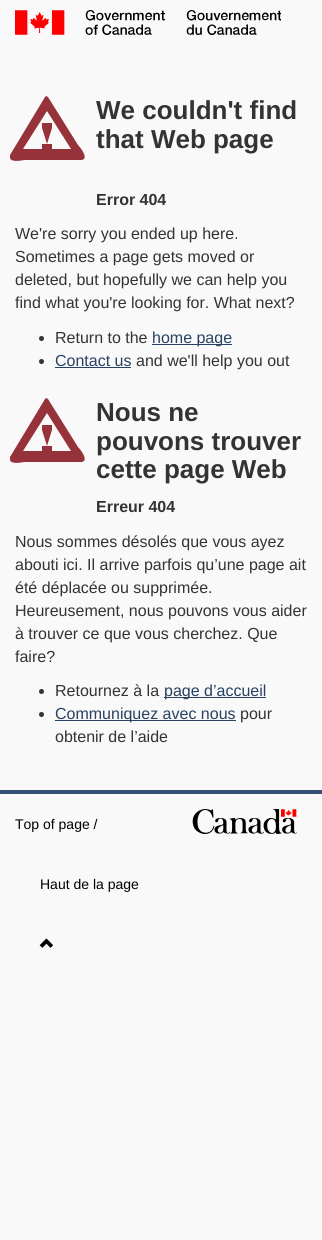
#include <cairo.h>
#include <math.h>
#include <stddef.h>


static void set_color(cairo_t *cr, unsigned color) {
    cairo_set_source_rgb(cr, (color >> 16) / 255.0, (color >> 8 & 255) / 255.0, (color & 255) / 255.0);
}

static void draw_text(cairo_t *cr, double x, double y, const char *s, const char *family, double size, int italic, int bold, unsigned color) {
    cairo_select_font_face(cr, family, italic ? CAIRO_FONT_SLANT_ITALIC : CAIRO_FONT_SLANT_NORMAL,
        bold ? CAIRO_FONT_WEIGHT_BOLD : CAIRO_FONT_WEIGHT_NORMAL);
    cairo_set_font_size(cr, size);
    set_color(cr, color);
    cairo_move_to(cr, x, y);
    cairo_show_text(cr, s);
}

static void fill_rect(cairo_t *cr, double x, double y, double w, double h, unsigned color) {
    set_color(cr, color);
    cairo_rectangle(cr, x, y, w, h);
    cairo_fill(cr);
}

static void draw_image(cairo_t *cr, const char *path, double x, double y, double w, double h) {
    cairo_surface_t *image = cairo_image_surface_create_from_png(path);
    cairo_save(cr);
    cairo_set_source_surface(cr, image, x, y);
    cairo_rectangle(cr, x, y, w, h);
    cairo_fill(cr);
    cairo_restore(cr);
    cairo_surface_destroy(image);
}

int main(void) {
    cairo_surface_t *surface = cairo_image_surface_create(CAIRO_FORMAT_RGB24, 322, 1240);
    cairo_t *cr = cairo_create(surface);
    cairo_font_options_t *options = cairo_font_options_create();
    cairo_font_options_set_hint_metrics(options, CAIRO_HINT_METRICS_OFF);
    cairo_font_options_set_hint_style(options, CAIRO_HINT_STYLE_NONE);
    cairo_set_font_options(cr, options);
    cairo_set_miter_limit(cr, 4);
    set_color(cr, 0xF9F9F9);
    cairo_paint(cr);
    draw_image(cr, "assets/img1.png", 15, 10, 266, 25);
    set_color(cr, 0x96323A);
    cairo_new_path(cr);
    cairo_move_to(cr, 10, 155);
    cairo_line_to(cr, 10, 158);
    cairo_curve_to(cr, 11, 163, 24, 160, 24, 160);
    cairo_line_to(cr, 82, 160);
    cairo_line_to(cr, 84, 159);
    cairo_curve_to(cr, 87, 155, 79, 146, 78, 145);
    cairo_line_to(cr, 48, 97);
    cairo_line_to(cr, 46, 96);
    cairo_line_to(cr, 45, 97);
    cairo_close_path(cr);
    cairo_move_to(cr, 23, 149);
    cairo_line_to(cr, 47, 111);
    cairo_line_to(cr, 71, 149);
    cairo_line_to(cr, 52, 149);
    cairo_line_to(cr, 52, 144);
    cairo_line_to(cr, 42, 144);
    cairo_line_to(cr, 42, 149);
    cairo_close_path(cr);
    cairo_move_to(cr, 42, 128);
    cairo_line_to(cr, 47, 144);
    cairo_line_to(cr, 52, 128);
    cairo_line_to(cr, 52, 123);
    cairo_line_to(cr, 42, 123);
    cairo_close_path(cr);
    cairo_fill(cr);
    draw_text(cr, 96, 119, "We couldn't find", "Liberation Sans", 26, 0, 1, 0x333333);
    draw_text(cr, 96, 148, "that Web page", "Liberation Sans", 26, 0, 1, 0x333333);
    draw_text(cr, 96, 205, "Error 404", "Liberation Sans", 16, 0, 1, 0x333333);
    draw_text(cr, 15, 239, "We're sorry you ended up here.", "Liberation Sans", 16, 0, 0, 0x333333);
    draw_text(cr, 15, 262, "Sometimes a page gets moved or", "Liberation Sans", 16, 0, 0, 0x333333);
    draw_text(cr, 15, 285, "deleted, but hopefully we can help you", "Liberation Sans", 16, 0, 0, 0x333333);
    draw_text(cr, 15, 308, "find what you're looking for. What next?", "Liberation Sans", 16, 0, 0, 0x333333);
    cairo_new_path(cr);
    cairo_arc(cr, 41.5, 338.5, 2.5, 0, 2 * M_PI);
    cairo_fill(cr);
    draw_text(cr, 55, 343, "Return to the", "Liberation Sans", 16, 0, 0, 0x333333);
    fill_rect(cr, 152, 344, 80, 1, 0x284162);
    draw_text(cr, 152, 343, "home page", "Liberation Sans", 16, 0, 0, 0x284162);
    set_color(cr, 0x333333);
    cairo_new_path(cr);
    cairo_arc(cr, 41.5, 361.5, 2.5, 0, 2 * M_PI);
    cairo_fill(cr);
    draw_text(cr, 55, 366, "Contact us", "Liberation Sans", 16, 0, 0, 0x284162);
    fill_rect(cr, 55, 367, 76, 1, 0x284162);
    draw_text(cr, 136, 366, "and we'll help you out", "Liberation Sans", 16, 0, 0, 0x333333);
    set_color(cr, 0x96323A);
    cairo_new_path(cr);
    cairo_move_to(cr, 10, 457);
    cairo_line_to(cr, 10, 460);
    cairo_curve_to(cr, 11, 465, 24, 462, 24, 462);
    cairo_line_to(cr, 82, 462);
    cairo_line_to(cr, 84, 461);
    cairo_curve_to(cr, 87, 457, 79, 448, 78, 447);
    cairo_line_to(cr, 48, 399);
    cairo_line_to(cr, 46, 398);
    cairo_line_to(cr, 45, 399);
    cairo_close_path(cr);
    cairo_move_to(cr, 23, 451);
    cairo_line_to(cr, 47, 413);
    cairo_line_to(cr, 71, 451);
    cairo_line_to(cr, 52, 451);
    cairo_line_to(cr, 52, 446);
    cairo_line_to(cr, 42, 446);
    cairo_line_to(cr, 42, 451);
    cairo_close_path(cr);
    cairo_move_to(cr, 42, 430);
    cairo_line_to(cr, 47, 446);
    cairo_line_to(cr, 52, 430);
    cairo_line_to(cr, 52, 425);
    cairo_line_to(cr, 42, 425);
    cairo_close_path(cr);
    cairo_fill(cr);
    draw_text(cr, 96, 421, "Nous ne", "Liberation Sans", 26, 0, 1, 0x333333);
    draw_text(cr, 96, 450, "pouvons trouver", "Liberation Sans", 26, 0, 1, 0x333333);
    draw_text(cr, 96, 478, "cette page Web", "Liberation Sans", 26, 0, 1, 0x333333);
    draw_text(cr, 96, 512, "Erreur 404", "Liberation Sans", 16, 0, 1, 0x333333);
    draw_text(cr, 15, 547, "Nous sommes désolés que vous ayez", "Liberation Sans", 16, 0, 0, 0x333333);
    draw_text(cr, 15, 570, "abouti ici. Il arrive parfois qu’une page ait", "Liberation Sans", 16, 0, 0, 0x333333);
    draw_text(cr, 15, 593, "été déplacée ou supprimée.", "Liberation Sans", 16, 0, 0, 0x333333);
    draw_text(cr, 15, 616, "Heureusement, nous pouvons vous aider", "Liberation Sans", 16, 0, 0, 0x333333);
    draw_text(cr, 15, 639, "à trouver ce que vous cherchez. Que", "Liberation Sans", 16, 0, 0, 0x333333);
    draw_text(cr, 15, 662, "faire?", "Liberation Sans", 16, 0, 0, 0x333333);
    cairo_new_path(cr);
    cairo_arc(cr, 41.5, 691.5, 2.5, 0, 2 * M_PI);
    cairo_fill(cr);
    draw_text(cr, 55, 696, "Retournez à la", "Liberation Sans", 16, 0, 0, 0x333333);
    fill_rect(cr, 164, 697, 102, 1, 0x284162);
    draw_text(cr, 164, 696, "page d’accueil", "Liberation Sans", 16, 0, 0, 0x284162);
    set_color(cr, 0x333333);
    cairo_new_path(cr);
    cairo_arc(cr, 41.5, 714.5, 2.5, 0, 2 * M_PI);
    cairo_fill(cr);
    fill_rect(cr, 55, 720, 181, 1, 0x284162);
    draw_text(cr, 55, 719, "Communiquez avec nous", "Liberation Sans", 16, 0, 0, 0x284162);
    draw_text(cr, 240, 719, "pour", "Liberation Sans", 16, 0, 0, 0x333333);
    draw_text(cr, 55, 742, "obtenir de l’aide", "Liberation Sans", 16, 0, 0, 0x333333);
    fill_rect(cr, 0, 790, 322, 4, 0x335175);
    draw_text(cr, 15, 829, "Top of page /", "Liberation Sans", 14, 0, 0, 0x000000);
    draw_text(cr, 40, 889, "Haut de la page", "Liberation Sans", 14, 0, 0, 0x000000);
    draw_image(cr, "assets/img2.png", 39, 938, 15, 10);
    draw_image(cr, "assets/img3.png", 192, 809, 105, 25);
    cairo_surface_write_to_png(surface, "output.png");
    cairo_font_options_destroy(options);
    cairo_destroy(cr);
    cairo_surface_destroy(surface);
    return 0;
}
